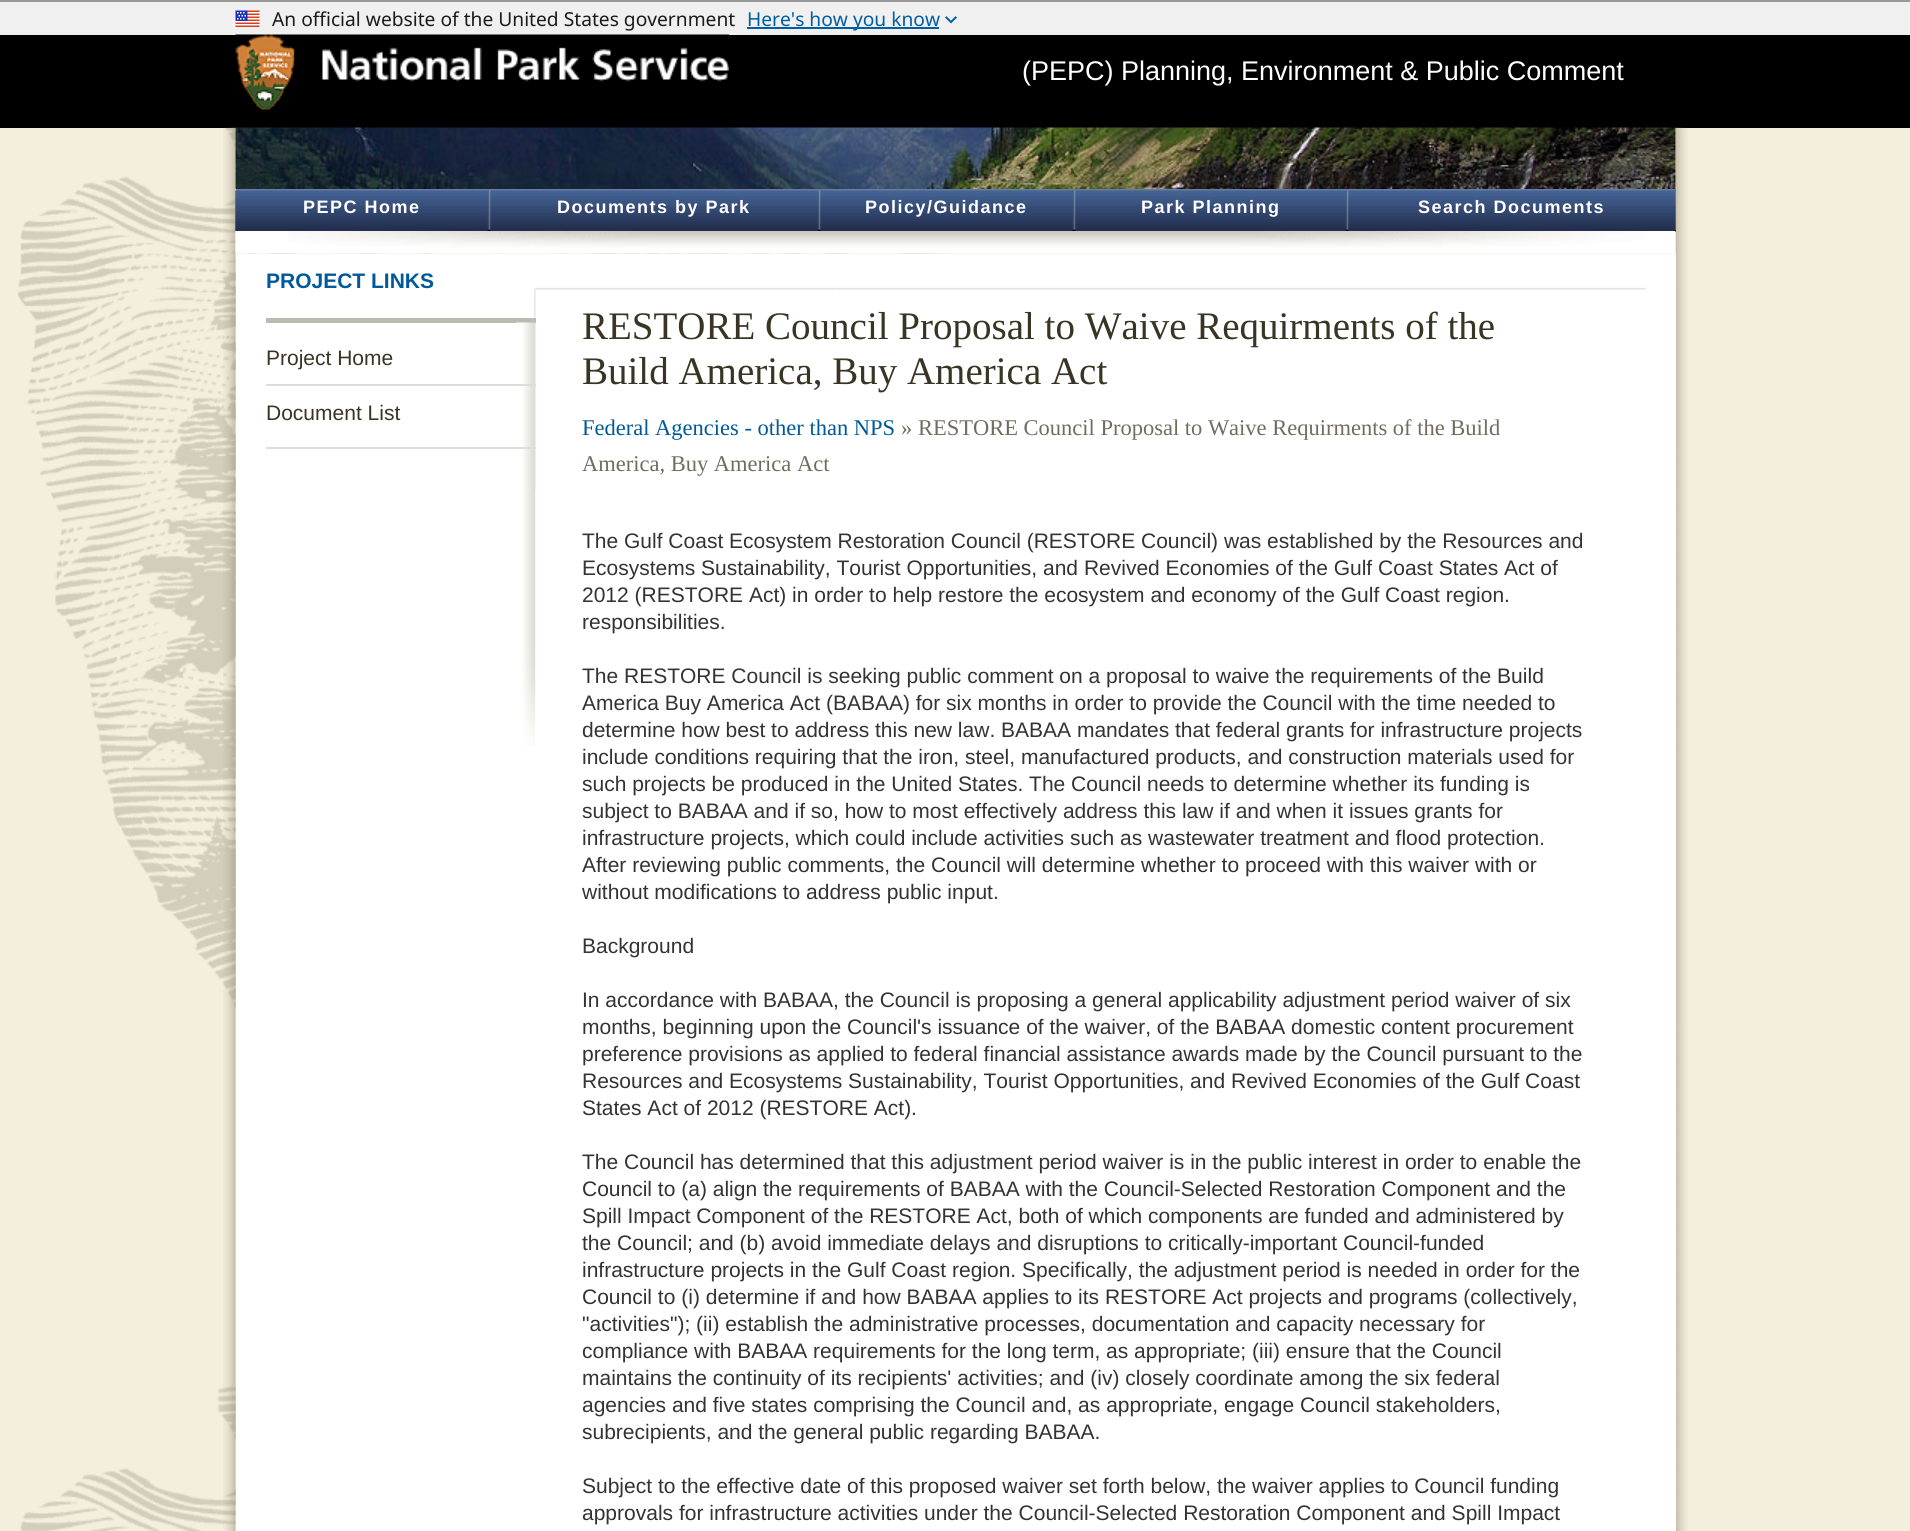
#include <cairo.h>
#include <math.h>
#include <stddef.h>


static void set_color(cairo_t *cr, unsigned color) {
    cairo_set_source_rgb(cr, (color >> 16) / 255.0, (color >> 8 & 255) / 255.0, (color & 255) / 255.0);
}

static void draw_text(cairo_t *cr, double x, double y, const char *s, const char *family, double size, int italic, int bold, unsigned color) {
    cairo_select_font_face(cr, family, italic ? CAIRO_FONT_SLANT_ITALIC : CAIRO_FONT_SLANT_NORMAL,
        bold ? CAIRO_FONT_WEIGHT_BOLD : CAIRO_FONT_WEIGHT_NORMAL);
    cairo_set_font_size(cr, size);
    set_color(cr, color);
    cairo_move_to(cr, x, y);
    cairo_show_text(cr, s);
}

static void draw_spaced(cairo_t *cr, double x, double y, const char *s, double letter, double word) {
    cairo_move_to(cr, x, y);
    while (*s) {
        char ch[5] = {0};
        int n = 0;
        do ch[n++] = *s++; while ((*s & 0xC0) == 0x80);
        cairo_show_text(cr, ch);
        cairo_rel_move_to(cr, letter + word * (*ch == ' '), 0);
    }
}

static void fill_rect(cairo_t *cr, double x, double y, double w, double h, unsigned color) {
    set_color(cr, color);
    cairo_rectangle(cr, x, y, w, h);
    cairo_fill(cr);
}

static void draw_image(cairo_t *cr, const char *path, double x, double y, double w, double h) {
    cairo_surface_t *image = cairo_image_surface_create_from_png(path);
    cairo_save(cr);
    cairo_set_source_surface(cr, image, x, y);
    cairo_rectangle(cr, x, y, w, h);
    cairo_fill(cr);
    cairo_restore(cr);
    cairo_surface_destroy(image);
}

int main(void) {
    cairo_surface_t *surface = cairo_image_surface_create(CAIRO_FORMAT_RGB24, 1910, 1531);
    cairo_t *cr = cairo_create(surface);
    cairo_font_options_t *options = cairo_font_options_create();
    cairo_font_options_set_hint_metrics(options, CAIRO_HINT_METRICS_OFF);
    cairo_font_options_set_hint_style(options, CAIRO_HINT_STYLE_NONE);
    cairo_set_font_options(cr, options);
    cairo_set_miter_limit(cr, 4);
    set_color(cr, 0xF4EFDD);
    cairo_paint(cr);
    draw_image(cr, "assets/img1.png", 17, 128, 951, 1403);
    fill_rect(cr, 0, 0, 1910, 2, 0x999999);
    fill_rect(cr, 0, 2, 1910, 33, 0xF0F0F0);
    draw_image(cr, "assets/img2.png", 235, 10, 25, 17);
    draw_text(cr, 272, 26, "An official website of the United States government", "Noto Sans", 19.2, 0, 0, 0x1B1B1B);
    fill_rect(cr, 747, 27, 192, 2, 0x005EA2);
    draw_text(cr, 747, 26, "Here's how you know", "Noto Sans", 19.2, 0, 0, 0x005EA2);
    draw_image(cr, "assets/img3.png", 945, 16, 12, 8);
    fill_rect(cr, 0, 35, 1910, 93, 0x000000);
    draw_image(cr, "assets/img4.png", 235, 34, 494, 76);
    draw_text(cr, 1022, 80, "(PEPC) Planning, Environment & Public Comment", "Liberation Sans", 27, 0, 0, 0xFFFFFF);
    draw_image(cr, "assets/img5.png", 223, 127, 1465, 127);
    draw_image(cr, "assets/img6.png", 235, 127, 1441, 62);
    draw_image(cr, "assets/img7.png", 235, 190, 1441, 41);
    fill_rect(cr, 236, 189, 1440, 2, 0x6B7A9F);
    fill_rect(cr, 487, 230, 1189, 2, 0x000000);
    draw_image(cr, "assets/img9.png", 487, 190, 4, 40);
    draw_image(cr, "assets/img8.png", 235, 190, 253, 41);
    cairo_select_font_face(cr, "Liberation Sans", CAIRO_FONT_SLANT_NORMAL, CAIRO_FONT_WEIGHT_BOLD);
    cairo_set_font_size(cr, 18);
    set_color(cr, 0xFFFFFF);
    draw_spaced(cr, 303, 213, "PEPC Home", 1.5, 0);
    draw_image(cr, "assets/img9.png", 817, 190, 4, 40);
    draw_image(cr, "assets/img10.png", 490, 190, 328, 41);
    draw_spaced(cr, 557, 213, "Documents by Park", 1.5, 0);
    draw_image(cr, "assets/img9.png", 1072, 190, 4, 40);
    draw_image(cr, "assets/img11.png", 820, 190, 253, 41);
    draw_spaced(cr, 865, 213, "Policy/Guidance", 1.5, 0);
    draw_image(cr, "assets/img9.png", 1345, 190, 4, 40);
    draw_image(cr, "assets/img12.png", 1075, 190, 271, 41);
    draw_spaced(cr, 1141, 213, "Park Planning", 1.5, 0);
    draw_image(cr, "assets/img13.png", 1348, 190, 328, 41);
    draw_spaced(cr, 1418, 213, "Search Documents", 1.5, 0);
    draw_image(cr, "assets/img14.png", 235, 231, 1441, 23);
    draw_image(cr, "assets/img15.png", 223, 253, 1465, 1278);
    fill_rect(cr, 236, 254, 1440, 1277, 0xFFFFFF);
    draw_image(cr, "assets/img16.png", 534, 287, 1112, 202);
    fill_rect(cr, 266, 318, 270, 5, 0xBDBBB1);
    draw_text(cr, 266, 288, "PROJECT LINKS", "Liberation Sans", 21, 0, 1, 0x005999);
    draw_image(cr, "assets/img17.png", 516, 322, 20, 424);
    fill_rect(cr, 266, 447, 270, 2, 0xDEDDD8);
    fill_rect(cr, 266, 384, 270, 2, 0xDEDDD8);
    draw_text(cr, 266, 365, "Project Home", "Liberation Sans", 21, 0, 0, 0x393423);
    draw_text(cr, 266, 420, "Document List", "Liberation Sans", 21, 0, 0, 0x393423);
    draw_text(cr, 582, 339, "RESTORE Council Proposal to Waive Requirments of the", "Liberation Serif", 39, 0, 0, 0x393423);
    draw_text(cr, 582, 384, "Build America, Buy America Act", "Liberation Serif", 39, 0, 0, 0x393423);
    draw_text(cr, 582, 435, "Federal Agencies - other than NPS", "Liberation Serif", 22.5, 0, 0, 0x005999);
    draw_text(cr, 901, 435, "» RESTORE Council Proposal to Waive Requirments of the Build", "Liberation Serif", 22.5, 0, 0, 0x706D5F);
    draw_text(cr, 582, 471, "America, Buy America Act", "Liberation Serif", 22.5, 0, 0, 0x706D5F);
    draw_text(cr, 582, 548, "The Gulf Coast Ecosystem Restoration Council (RESTORE Council) was established by the Resources and", "Liberation Sans", 21, 0, 0, 0x333333);
    draw_text(cr, 582, 575, "Ecosystems Sustainability, Tourist Opportunities, and Revived Economies of the Gulf Coast States Act of", "Liberation Sans", 21, 0, 0, 0x333333);
    draw_text(cr, 582, 602, "2012 (RESTORE Act) in order to help restore the ecosystem and economy of the Gulf Coast region.", "Liberation Sans", 21, 0, 0, 0x333333);
    draw_text(cr, 582, 629, "responsibilities.", "Liberation Sans", 21, 0, 0, 0x333333);
    draw_text(cr, 582, 683, "The RESTORE Council is seeking public comment on a proposal to waive the requirements of the Build", "Liberation Sans", 21, 0, 0, 0x333333);
    draw_text(cr, 582, 710, "America Buy America Act (BABAA) for six months in order to provide the Council with the time needed to", "Liberation Sans", 21, 0, 0, 0x333333);
    draw_text(cr, 582, 737, "determine how best to address this new law. BABAA mandates that federal grants for infrastructure projects", "Liberation Sans", 21, 0, 0, 0x333333);
    draw_text(cr, 582, 764, "include conditions requiring that the iron, steel, manufactured products, and construction materials used for", "Liberation Sans", 21, 0, 0, 0x333333);
    draw_text(cr, 582, 791, "such projects be produced in the United States. The Council needs to determine whether its funding is", "Liberation Sans", 21, 0, 0, 0x333333);
    draw_text(cr, 582, 818, "subject to BABAA and if so, how to most effectively address this law if and when it issues grants for", "Liberation Sans", 21, 0, 0, 0x333333);
    draw_text(cr, 582, 845, "infrastructure projects, which could include activities such as wastewater treatment and flood protection.", "Liberation Sans", 21, 0, 0, 0x333333);
    draw_text(cr, 582, 872, "After reviewing public comments, the Council will determine whether to proceed with this waiver with or", "Liberation Sans", 21, 0, 0, 0x333333);
    draw_text(cr, 582, 899, "without modifications to address public input.", "Liberation Sans", 21, 0, 0, 0x333333);
    draw_text(cr, 582, 953, "Background", "Liberation Sans", 21, 0, 0, 0x333333);
    draw_text(cr, 582, 1007, "In accordance with BABAA, the Council is proposing a general applicability adjustment period waiver of six", "Liberation Sans", 21, 0, 0, 0x333333);
    draw_text(cr, 582, 1034, "months, beginning upon the Council's issuance of the waiver, of the BABAA domestic content procurement", "Liberation Sans", 21, 0, 0, 0x333333);
    draw_text(cr, 582, 1061, "preference provisions as applied to federal financial assistance awards made by the Council pursuant to the", "Liberation Sans", 21, 0, 0, 0x333333);
    draw_text(cr, 582, 1088, "Resources and Ecosystems Sustainability, Tourist Opportunities, and Revived Economies of the Gulf Coast", "Liberation Sans", 21, 0, 0, 0x333333);
    draw_text(cr, 582, 1115, "States Act of 2012 (RESTORE Act).", "Liberation Sans", 21, 0, 0, 0x333333);
    draw_text(cr, 582, 1169, "The Council has determined that this adjustment period waiver is in the public interest in order to enable the", "Liberation Sans", 21, 0, 0, 0x333333);
    draw_text(cr, 582, 1196, "Council to (a) align the requirements of BABAA with the Council-Selected Restoration Component and the", "Liberation Sans", 21, 0, 0, 0x333333);
    draw_text(cr, 582, 1223, "Spill Impact Component of the RESTORE Act, both of which components are funded and administered by", "Liberation Sans", 21, 0, 0, 0x333333);
    draw_text(cr, 582, 1250, "the Council; and (b) avoid immediate delays and disruptions to critically-important Council-funded", "Liberation Sans", 21, 0, 0, 0x333333);
    draw_text(cr, 582, 1277, "infrastructure projects in the Gulf Coast region. Specifically, the adjustment period is needed in order for the", "Liberation Sans", 21, 0, 0, 0x333333);
    draw_text(cr, 582, 1304, "Council to (i) determine if and how BABAA applies to its RESTORE Act projects and programs (collectively,", "Liberation Sans", 21, 0, 0, 0x333333);
    draw_text(cr, 582, 1331, "\"activities\"); (ii) establish the administrative processes, documentation and capacity necessary for", "Liberation Sans", 21, 0, 0, 0x333333);
    draw_text(cr, 582, 1358, "compliance with BABAA requirements for the long term, as appropriate; (iii) ensure that the Council", "Liberation Sans", 21, 0, 0, 0x333333);
    draw_text(cr, 582, 1385, "maintains the continuity of its recipients' activities; and (iv) closely coordinate among the six federal", "Liberation Sans", 21, 0, 0, 0x333333);
    draw_text(cr, 582, 1412, "agencies and five states comprising the Council and, as appropriate, engage Council stakeholders,", "Liberation Sans", 21, 0, 0, 0x333333);
    draw_text(cr, 582, 1439, "subrecipients, and the general public regarding BABAA.", "Liberation Sans", 21, 0, 0, 0x333333);
    draw_text(cr, 582, 1493, "Subject to the effective date of this proposed waiver set forth below, the waiver applies to Council funding", "Liberation Sans", 21, 0, 0, 0x333333);
    draw_text(cr, 582, 1520, "approvals for infrastructure activities under the Council-Selected Restoration Component and Spill Impact", "Liberation Sans", 21, 0, 0, 0x333333);
    cairo_surface_write_to_png(surface, "output.png");
    cairo_font_options_destroy(options);
    cairo_destroy(cr);
    cairo_surface_destroy(surface);
    return 0;
}
